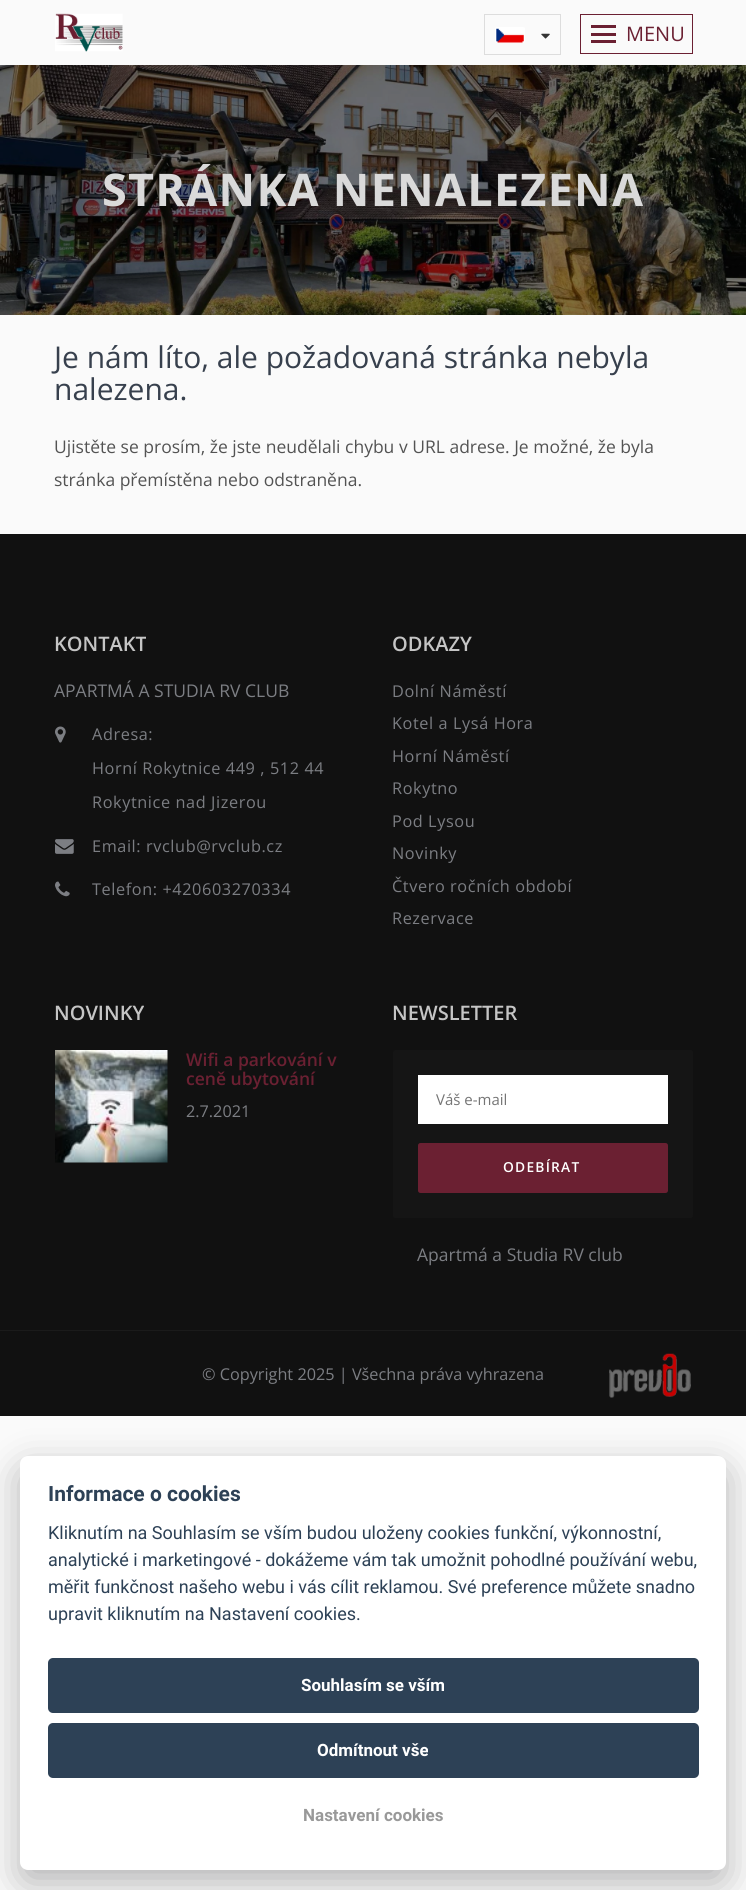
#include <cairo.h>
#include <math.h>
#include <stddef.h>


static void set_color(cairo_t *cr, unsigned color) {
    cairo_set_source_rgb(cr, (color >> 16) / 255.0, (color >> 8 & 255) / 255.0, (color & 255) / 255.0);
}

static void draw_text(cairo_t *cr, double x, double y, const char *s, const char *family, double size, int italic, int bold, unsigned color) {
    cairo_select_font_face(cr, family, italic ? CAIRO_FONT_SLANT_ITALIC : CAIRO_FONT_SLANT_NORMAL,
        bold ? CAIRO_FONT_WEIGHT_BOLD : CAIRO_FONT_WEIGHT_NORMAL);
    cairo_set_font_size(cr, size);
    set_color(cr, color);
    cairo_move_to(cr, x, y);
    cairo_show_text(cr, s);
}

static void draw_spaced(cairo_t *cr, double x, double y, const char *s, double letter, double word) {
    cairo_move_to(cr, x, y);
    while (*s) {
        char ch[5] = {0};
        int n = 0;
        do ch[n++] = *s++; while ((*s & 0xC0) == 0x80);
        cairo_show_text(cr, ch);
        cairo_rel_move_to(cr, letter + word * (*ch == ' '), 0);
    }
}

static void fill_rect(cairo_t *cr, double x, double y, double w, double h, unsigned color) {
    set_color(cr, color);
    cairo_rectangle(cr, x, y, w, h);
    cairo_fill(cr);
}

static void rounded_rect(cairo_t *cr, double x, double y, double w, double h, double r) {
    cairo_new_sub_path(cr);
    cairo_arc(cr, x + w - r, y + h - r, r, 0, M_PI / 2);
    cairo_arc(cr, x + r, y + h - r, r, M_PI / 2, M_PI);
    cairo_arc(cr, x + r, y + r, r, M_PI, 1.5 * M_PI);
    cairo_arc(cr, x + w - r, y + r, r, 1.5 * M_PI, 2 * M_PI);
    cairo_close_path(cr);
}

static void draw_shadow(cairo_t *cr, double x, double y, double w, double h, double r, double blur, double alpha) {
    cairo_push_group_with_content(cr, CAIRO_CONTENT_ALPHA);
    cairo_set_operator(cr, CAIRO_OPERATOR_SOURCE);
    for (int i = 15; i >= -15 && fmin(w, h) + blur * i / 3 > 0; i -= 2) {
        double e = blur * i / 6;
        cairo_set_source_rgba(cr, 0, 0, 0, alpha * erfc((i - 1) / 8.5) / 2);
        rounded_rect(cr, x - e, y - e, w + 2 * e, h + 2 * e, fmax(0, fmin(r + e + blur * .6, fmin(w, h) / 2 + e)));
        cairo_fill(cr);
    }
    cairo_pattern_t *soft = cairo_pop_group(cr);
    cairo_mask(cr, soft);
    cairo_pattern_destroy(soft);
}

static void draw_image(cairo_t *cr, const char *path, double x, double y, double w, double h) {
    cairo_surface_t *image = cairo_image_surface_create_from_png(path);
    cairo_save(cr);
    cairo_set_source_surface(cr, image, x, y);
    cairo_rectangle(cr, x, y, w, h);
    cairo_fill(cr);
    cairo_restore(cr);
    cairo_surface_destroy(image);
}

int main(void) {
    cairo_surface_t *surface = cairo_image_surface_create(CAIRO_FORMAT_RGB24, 746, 1890);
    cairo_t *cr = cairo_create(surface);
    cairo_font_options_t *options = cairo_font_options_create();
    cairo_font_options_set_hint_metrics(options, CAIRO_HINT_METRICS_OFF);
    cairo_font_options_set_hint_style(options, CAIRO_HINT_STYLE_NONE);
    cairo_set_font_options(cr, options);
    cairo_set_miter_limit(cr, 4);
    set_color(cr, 0xFAFAFA);
    cairo_paint(cr);
    draw_image(cr, "assets/img1.png", 55, 13, 68, 39);
    cairo_rectangle(cr, 484.5, 14.5, 76, 40);
    set_color(cr, 0xDDDDDD);
    cairo_set_line_width(cr, 1);
    cairo_stroke(cr);
    draw_image(cr, "assets/img2.png", 495, 27, 30, 16);
    draw_image(cr, "assets/img3.png", 541, 33, 9, 6);
    cairo_rectangle(cr, 580.5, 14.5, 112, 39);
    set_color(cr, 0x6B2032);
    cairo_stroke(cr);
    fill_rect(cr, 591, 33, 25, 3, 0x6B2032);
    fill_rect(cr, 591, 25, 25, 3, 0x6B2032);
    fill_rect(cr, 591, 40, 25, 3, 0x6B2032);
    draw_text(cr, 626, 41, "MENU", "Open Sans", 20, 0, 0, 0x6B2032);
    draw_image(cr, "assets/img4.png", 0, 65, 746, 250);
    cairo_select_font_face(cr, "Open Sans", CAIRO_FONT_SLANT_NORMAL, CAIRO_FONT_WEIGHT_BOLD);
    cairo_set_font_size(cr, 45);
    set_color(cr, 0xDADADA);
    draw_spaced(cr, 102, 206, "STRÁNKA NENALEZENA", 1.25, 0);
    draw_text(cr, 54, 368, "Je nám líto, ale požadovaná stránka nebyla", "Open Sans", 30, 0, 0, 0x37404D);
    draw_text(cr, 54, 400, "nalezena.", "Open Sans", 30, 0, 0, 0x37404D);
    draw_text(cr, 54, 453, "Ujistěte se prosím, že jste neudělali chybu v URL adrese. Je možné, že byla", "Open Sans", 17.5, 0, 0, 0x535353);
    draw_text(cr, 54, 486, "stránka přemístěna nebo odstraněna.", "Open Sans", 17.5, 0, 0, 0x535353);
    fill_rect(cr, 0, 534, 746, 796, 0x111111);
    draw_text(cr, 54, 651, "KONTAKT", "Open Sans SemiBold", 20, 0, 0, 0xC5C5C5);
    draw_text(cr, 54, 697, "APARTMÁ A STUDIA RV CLUB", "Open Sans", 17.5, 0, 0, 0x7C7E83);
    draw_image(cr, "assets/img5.png", 55, 726, 11, 17);
    cairo_set_font_size(cr, 16.25);
    draw_spaced(cr, 92, 740, "Adresa:", 0.6, 0);
    draw_spaced(cr, 92, 774, "Horní Rokytnice 449 , 512 44", 0.6, 0);
    draw_spaced(cr, 92, 808, "Rokytnice nad Jizerou", 0.6, 0);
    draw_image(cr, "assets/img6.png", 55, 839, 19, 15);
    draw_spaced(cr, 92, 852, "Email: rvclub@rvclub.cz", 0.6, 0);
    draw_image(cr, "assets/img7.png", 55, 881, 15, 16);
    draw_spaced(cr, 92, 895, "Telefon: +420603270334", 0.6, 0);
    draw_text(cr, 392, 651, "ODKAZY", "Open Sans SemiBold", 20, 0, 0, 0xC5C5C5);
    cairo_select_font_face(cr, "Open Sans", CAIRO_FONT_SLANT_NORMAL, CAIRO_FONT_WEIGHT_NORMAL);
    cairo_set_font_size(cr, 16.25);
    set_color(cr, 0x7C7E83);
    draw_spaced(cr, 392, 697, "Dolní Náměstí", 0.6, 0);
    draw_spaced(cr, 392, 729, "Kotel a Lysá Hora", 0.6, 0);
    draw_spaced(cr, 392, 762, "Horní Náměstí", 0.6, 0);
    draw_spaced(cr, 392, 794, "Rokytno", 0.6, 0);
    draw_spaced(cr, 392, 827, "Pod Lysou", 0.6, 0);
    draw_spaced(cr, 392, 859, "Novinky", 0.6, 0);
    draw_spaced(cr, 392, 892, "Čtvero ročních období", 0.6, 0);
    draw_spaced(cr, 392, 924, "Rezervace", 0.6, 0);
    draw_text(cr, 54, 1020, "NOVINKY", "Open Sans SemiBold", 20, 0, 0, 0xC5C5C5);
    draw_image(cr, "assets/img8.png", 55, 1050, 113, 113);
    draw_text(cr, 186, 1066, "Wifi a parkování v", "Open Sans SemiBold", 17.5, 0, 0, 0x6B2032);
    draw_text(cr, 186, 1085, "ceně ubytování", "Open Sans SemiBold", 17.5, 0, 0, 0x6B2032);
    draw_text(cr, 186, 1117, "2.7.2021", "Open Sans", 16.25, 0, 0, 0x7C7E83);
    draw_text(cr, 392, 1020, "NEWSLETTER", "Open Sans SemiBold", 20, 0, 0, 0xC5C5C5);
    set_color(cr, 0x151515);
    rounded_rect(cr, 393, 1050, 300, 168, 2.5);
    cairo_fill(cr);
    fill_rect(cr, 418, 1075, 250, 49, 0xFFFFFF);
    draw_text(cr, 436, 1105, "Váš e-mail", "Open Sans", 15, 0, 0, 0x757575);
    set_color(cr, 0x6B2032);
    rounded_rect(cr, 419.5, 1144.5, 247, 47, 1);
    cairo_fill_preserve(cr);
    cairo_set_line_width(cr, 3);
    cairo_stroke(cr);
    cairo_select_font_face(cr, "Open Sans SemiBold", CAIRO_FONT_SLANT_NORMAL, CAIRO_FONT_WEIGHT_NORMAL);
    cairo_set_font_size(cr, 13.75);
    set_color(cr, 0xFFFFFF);
    draw_spaced(cr, 503, 1172, "ODEBÍRAT", 1.25, 0);
    draw_text(cr, 417, 1261, "Apartmá a Studia RV club", "Open Sans", 17.5, 0, 0, 0x7C7E83);
    fill_rect(cr, 0, 1331, 746, 85, 0x111111);
    fill_rect(cr, 0, 1330, 746, 1, 0x1B1B1B);
    draw_text(cr, 202, 1380, "© Copyright 2025 | Všechna práva vyhrazena", "Open Sans", 16.25, 0, 0, 0x7C7E83);
    draw_image(cr, "assets/img9.png", 609, 1353, 82, 45);
    set_color(cr, 0x020203);
    draw_shadow(cr, 20, 1469, 706, 414, 8, 19, 0.28);
    set_color(cr, 0xFFFFFF);
    rounded_rect(cr, 20, 1456, 706, 414, 8);
    cairo_fill(cr);
    draw_text(cr, 48, 1501, "Informace o cookies", "Roboto", 21, 0, 1, 0x2D4156);
    draw_text(cr, 48, 1539, "Kliknutím na Souhlasím se vším budou uloženy cookies funkční, výkonnostní,", "Roboto", 18, 0, 0, 0x2D4156);
    draw_text(cr, 48, 1566, "analytické i marketingové - dokážeme vám tak umožnit pohodlné používání webu,", "Roboto", 18, 0, 0, 0x2D4156);
    draw_text(cr, 48, 1593, "měřit funkčnost našeho webu i vás cílit reklamou. Své preference můžete snadno", "Roboto", 18, 0, 0, 0x2D4156);
    draw_text(cr, 48, 1620, "upravit kliknutím na Nastavení cookies.", "Roboto", 18, 0, 0, 0x2D4156);
    rounded_rect(cr, 48, 1658, 651, 55, 5);
    cairo_fill(cr);
    draw_text(cr, 301, 1691, "Souhlasím se vším", "Roboto", 17, 0, 1, 0xFFFFFF);
    set_color(cr, 0x2D4156);
    rounded_rect(cr, 48, 1723, 651, 55, 5);
    cairo_fill(cr);
    draw_text(cr, 317, 1756, "Odmítnout vše", "Roboto", 17, 0, 1, 0xFFFFFF);
    draw_text(cr, 303, 1821, "Nastavení cookies", "Roboto", 17, 0, 1, 0x999999);
    cairo_surface_write_to_png(surface, "output.png");
    cairo_font_options_destroy(options);
    cairo_destroy(cr);
    cairo_surface_destroy(surface);
    return 0;
}
